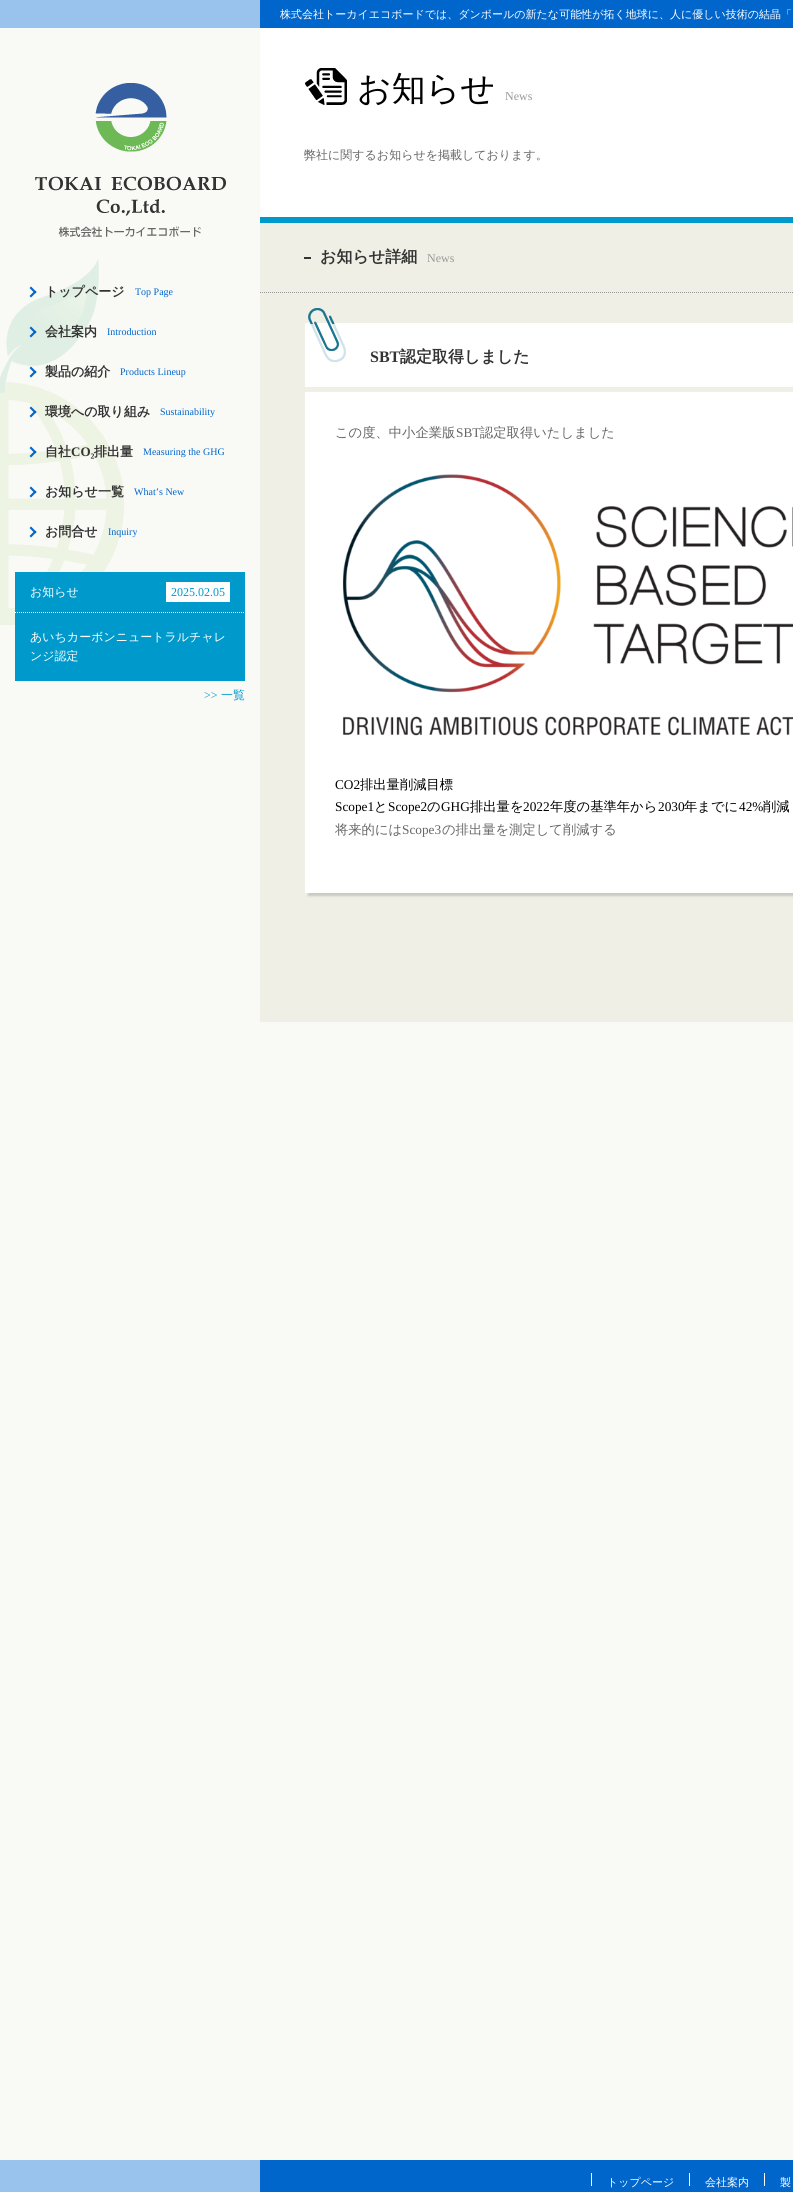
import math
import cairo


def round_path(ctx, x, y, w, h, r):
	ctx.new_sub_path()
	for i, (u, v) in enumerate([(x + w - r, y + h - r), (x + r, y + h - r), (x + r, y + r), (x + w - r, y + r)]):
		ctx.arc(u, v, r, i * math.pi / 2, (i + 1) * math.pi / 2)
	ctx.close_path()

def blur_box(ctx, x, y, w, h, r, blur, alpha):
	ctx.push_group_with_content(cairo.CONTENT_ALPHA)
	ctx.set_operator(cairo.OPERATOR_SOURCE)
	for i in range(15, -16, -2):
		e = blur * i / 6
		if min(w, h) + 2 * e > 0:
			ctx.set_source_rgba(0, 0, 0, alpha * math.erfc((i - 1) / 8.5) / 2)
			round_path(ctx, x - e, y - e, w + 2 * e, h + 2 * e, max(0, min(r + e + blur * .6, min(w, h) / 2 + e)))
			ctx.fill()
	ctx.mask(ctx.pop_group())

def paste(ctx, path, x, y, w, h):
	ctx.save()
	ctx.set_source_surface(cairo.ImageSurface.create_from_png(path), x, y)
	ctx.rectangle(x, y, w, h)
	ctx.fill()
	ctx.restore()

def draw(ctx):
	ctx.set_source_rgb(0.976, 0.976, 0.961)
	ctx.paint()
	ctx.set_source_rgb(0, 0.4, 0.8)
	ctx.rectangle(260, 0, 533, 28)
	ctx.fill()
	ctx.set_source_rgb(0.6, 0.761, 0.922)
	ctx.rectangle(0, 0, 260, 28)
	ctx.fill()
	ctx.select_font_face('WenQuanYi Zen Hei Medium')
	ctx.set_font_size(11)
	ctx.set_source_rgb(1, 1, 1)
	ctx.move_to(280, 18)
	ctx.show_text('株式会社トーカイエコボードでは、ダンボールの新たな可能性が拓く地球に、人に優しい技術の結晶「')
	paste(ctx, 'media/1.png', 0, 259, 124, 366)
	paste(ctx, 'media/2.png', 35, 83, 191, 154)
	ctx.set_source_rgb(0, 0.4, 0.8)
	ctx.new_path()
	ctx.move_to(29.5, 288)
	ctx.line_to(31, 286.5)
	ctx.line_to(36.5, 292)
	ctx.line_to(35, 293.5)
	ctx.close_path()
	ctx.fill()
	ctx.new_path()
	ctx.move_to(29.5, 296)
	ctx.line_to(35, 290.5)
	ctx.line_to(36.5, 292)
	ctx.line_to(31, 297.5)
	ctx.close_path()
	ctx.fill()
	ctx.select_font_face('WenQuanYi Zen Hei', cairo.FONT_SLANT_NORMAL, cairo.FONT_WEIGHT_BOLD)
	ctx.set_font_size(13)
	ctx.set_source_rgb(0.2, 0.2, 0.2)
	ctx.move_to(45, 296)
	ctx.show_text('トップページ')
	ctx.select_font_face('Liberation Serif')
	ctx.set_font_size(10)
	ctx.set_source_rgb(0, 0.4, 0.8)
	ctx.move_to(135, 295)
	ctx.show_text('Top Page')
	ctx.new_path()
	ctx.move_to(29.5, 328)
	ctx.line_to(31, 326.5)
	ctx.line_to(36.5, 332)
	ctx.line_to(35, 333.5)
	ctx.close_path()
	ctx.fill()
	ctx.new_path()
	ctx.move_to(29.5, 336)
	ctx.line_to(35, 330.5)
	ctx.line_to(36.5, 332)
	ctx.line_to(31, 337.5)
	ctx.close_path()
	ctx.fill()
	ctx.select_font_face('WenQuanYi Zen Hei', cairo.FONT_SLANT_NORMAL, cairo.FONT_WEIGHT_BOLD)
	ctx.set_font_size(13)
	ctx.set_source_rgb(0.2, 0.2, 0.2)
	ctx.move_to(45, 336)
	ctx.show_text('会社案内')
	ctx.select_font_face('Liberation Serif')
	ctx.set_font_size(10)
	ctx.set_source_rgb(0, 0.4, 0.8)
	ctx.move_to(107, 335)
	ctx.show_text('Introduction')
	ctx.new_path()
	ctx.move_to(29.5, 368)
	ctx.line_to(31, 366.5)
	ctx.line_to(36.5, 372)
	ctx.line_to(35, 373.5)
	ctx.close_path()
	ctx.fill()
	ctx.new_path()
	ctx.move_to(29.5, 376)
	ctx.line_to(35, 370.5)
	ctx.line_to(36.5, 372)
	ctx.line_to(31, 377.5)
	ctx.close_path()
	ctx.fill()
	ctx.select_font_face('WenQuanYi Zen Hei', cairo.FONT_SLANT_NORMAL, cairo.FONT_WEIGHT_BOLD)
	ctx.set_font_size(13)
	ctx.set_source_rgb(0.2, 0.2, 0.2)
	ctx.move_to(45, 376)
	ctx.show_text('製品の紹介')
	ctx.select_font_face('Liberation Serif')
	ctx.set_font_size(10)
	ctx.set_source_rgb(0, 0.4, 0.8)
	ctx.move_to(120, 375)
	ctx.show_text('Products Lineup')
	ctx.new_path()
	ctx.move_to(29.5, 408)
	ctx.line_to(31, 406.5)
	ctx.line_to(36.5, 412)
	ctx.line_to(35, 413.5)
	ctx.close_path()
	ctx.fill()
	ctx.new_path()
	ctx.move_to(29.5, 416)
	ctx.line_to(35, 410.5)
	ctx.line_to(36.5, 412)
	ctx.line_to(31, 417.5)
	ctx.close_path()
	ctx.fill()
	ctx.select_font_face('WenQuanYi Zen Hei', cairo.FONT_SLANT_NORMAL, cairo.FONT_WEIGHT_BOLD)
	ctx.set_font_size(13)
	ctx.set_source_rgb(0.2, 0.2, 0.2)
	ctx.move_to(45, 416)
	ctx.show_text('環境への取り組み')
	ctx.select_font_face('Liberation Serif')
	ctx.set_font_size(10)
	ctx.set_source_rgb(0, 0.4, 0.8)
	ctx.move_to(160, 415)
	ctx.show_text('Sustainability')
	ctx.new_path()
	ctx.move_to(29.5, 448)
	ctx.line_to(31, 446.5)
	ctx.line_to(36.5, 452)
	ctx.line_to(35, 453.5)
	ctx.close_path()
	ctx.fill()
	ctx.new_path()
	ctx.move_to(29.5, 456)
	ctx.line_to(35, 450.5)
	ctx.line_to(36.5, 452)
	ctx.line_to(31, 457.5)
	ctx.close_path()
	ctx.fill()
	ctx.select_font_face('WenQuanYi Zen Hei', cairo.FONT_SLANT_NORMAL, cairo.FONT_WEIGHT_BOLD)
	ctx.set_font_size(13)
	ctx.set_source_rgb(0.2, 0.2, 0.2)
	ctx.move_to(45, 456)
	ctx.show_text('自社')
	ctx.select_font_face('Liberation Serif', cairo.FONT_SLANT_NORMAL, cairo.FONT_WEIGHT_BOLD)
	ctx.move_to(71, 456)
	ctx.show_text('CO₂')
	ctx.select_font_face('WenQuanYi Zen Hei', cairo.FONT_SLANT_NORMAL, cairo.FONT_WEIGHT_BOLD)
	ctx.move_to(94, 456)
	ctx.show_text('排出量')
	ctx.select_font_face('Liberation Serif')
	ctx.set_font_size(10)
	ctx.set_source_rgb(0, 0.4, 0.8)
	ctx.move_to(143, 455)
	ctx.show_text('Measuring the GHG')
	ctx.new_path()
	ctx.move_to(29.5, 488)
	ctx.line_to(31, 486.5)
	ctx.line_to(36.5, 492)
	ctx.line_to(35, 493.5)
	ctx.close_path()
	ctx.fill()
	ctx.new_path()
	ctx.move_to(29.5, 496)
	ctx.line_to(35, 490.5)
	ctx.line_to(36.5, 492)
	ctx.line_to(31, 497.5)
	ctx.close_path()
	ctx.fill()
	ctx.select_font_face('WenQuanYi Zen Hei', cairo.FONT_SLANT_NORMAL, cairo.FONT_WEIGHT_BOLD)
	ctx.set_font_size(13)
	ctx.set_source_rgb(0.2, 0.2, 0.2)
	ctx.move_to(45, 496)
	ctx.show_text('お知らせ一覧')
	ctx.select_font_face('Liberation Serif')
	ctx.set_font_size(10)
	ctx.set_source_rgb(0, 0.4, 0.8)
	ctx.move_to(134, 495)
	ctx.show_text('What’s New')
	ctx.new_path()
	ctx.move_to(29.5, 528)
	ctx.line_to(31, 526.5)
	ctx.line_to(36.5, 532)
	ctx.line_to(35, 533.5)
	ctx.close_path()
	ctx.fill()
	ctx.new_path()
	ctx.move_to(29.5, 536)
	ctx.line_to(35, 530.5)
	ctx.line_to(36.5, 532)
	ctx.line_to(31, 537.5)
	ctx.close_path()
	ctx.fill()
	ctx.select_font_face('WenQuanYi Zen Hei', cairo.FONT_SLANT_NORMAL, cairo.FONT_WEIGHT_BOLD)
	ctx.set_font_size(13)
	ctx.set_source_rgb(0.2, 0.2, 0.2)
	ctx.move_to(45, 536)
	ctx.show_text('お問合せ')
	ctx.select_font_face('Liberation Serif')
	ctx.set_font_size(10)
	ctx.set_source_rgb(0, 0.4, 0.8)
	ctx.move_to(108, 535)
	ctx.show_text('Inquiry')
	ctx.set_source_rgb(0, 0.6, 0.8)
	ctx.rectangle(15, 572, 230, 109)
	ctx.fill()
	ctx.new_path()
	ctx.move_to(15, 612.5)
	ctx.line_to(245, 612.5)
	ctx.set_source_rgb(1, 1, 1)
	ctx.set_line_width(1)
	ctx.set_dash([1, 1])
	ctx.stroke()
	ctx.select_font_face('WenQuanYi Zen Hei Medium')
	ctx.set_font_size(12)
	ctx.move_to(30, 596)
	ctx.show_text('お知らせ')
	ctx.rectangle(166, 582, 64, 20)
	ctx.fill()
	ctx.select_font_face('Liberation Serif')
	ctx.set_source_rgb(0, 0.6, 0.8)
	ctx.move_to(171, 596)
	ctx.show_text('2025.02.05')
	ctx.select_font_face('WenQuanYi Zen Hei Medium')
	ctx.set_source_rgb(1, 1, 1)
	ctx.move_to(30, 641)
	ctx.show_text('あいちカーボンニュートラルチャレ')
	ctx.move_to(30, 660)
	ctx.show_text('ンジ認定')
	ctx.select_font_face('Liberation Serif')
	ctx.set_source_rgb(0, 0.6, 0.8)
	ctx.move_to(204, 699)
	ctx.show_text('>>')
	ctx.select_font_face('WenQuanYi Zen Hei Medium')
	ctx.move_to(221, 699)
	ctx.show_text('一覧')
	ctx.set_source_rgb(0.937, 0.937, 0.902)
	ctx.rectangle(260, 223, 533, 799)
	ctx.fill()
	ctx.set_source_rgb(1, 1, 1)
	ctx.rectangle(260, 28, 533, 189)
	ctx.fill()
	paste(ctx, 'media/3.png', 305, 68, 42, 37)
	ctx.set_font_size(34)
	ctx.set_source_rgb(0, 0, 0)
	ctx.move_to(357, 100)
	ctx.show_text('お知らせ')
	ctx.select_font_face('Liberation Serif')
	ctx.set_font_size(12)
	ctx.set_source_rgb(0.6, 0.6, 0.6)
	ctx.move_to(505, 100)
	ctx.show_text('News')
	ctx.set_source_rgb(0, 0.6, 0.8)
	ctx.rectangle(260, 217, 533, 6)
	ctx.fill()
	ctx.select_font_face('WenQuanYi Zen Hei Medium')
	ctx.set_source_rgb(0.4, 0.4, 0.4)
	ctx.move_to(304, 159)
	ctx.show_text('弊社に関するお知らせを掲載しております。')
	ctx.new_path()
	ctx.move_to(260, 292.5)
	ctx.line_to(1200, 292.5)
	ctx.set_source_rgb(0.6, 0.6, 0.6)
	ctx.stroke()
	ctx.set_source_rgb(0.2, 0.2, 0.2)
	ctx.rectangle(304, 257, 7, 2)
	ctx.fill()
	ctx.select_font_face('WenQuanYi Zen Hei', cairo.FONT_SLANT_NORMAL, cairo.FONT_WEIGHT_BOLD)
	ctx.set_font_size(16)
	ctx.move_to(320, 262)
	ctx.show_text('お知らせ詳細')
	ctx.select_font_face('Liberation Serif')
	ctx.set_font_size(12)
	ctx.set_source_rgb(0.6, 0.6, 0.6)
	ctx.move_to(427, 262)
	ctx.show_text('News')
	ctx.set_source_rgb(0.792, 0.792, 0.765)
	blur_box(ctx, 308, 326, 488, 570, 0, 1, 1)
	ctx.set_source_rgb(1, 1, 1)
	ctx.rectangle(305, 323, 488, 570)
	ctx.fill()
	paste(ctx, 'media/4.png', 308, 308, 38, 55)
	ctx.set_source_rgb(0.937, 0.937, 0.902)
	ctx.rectangle(305, 387, 488, 5)
	ctx.fill()
	ctx.select_font_face('Liberation Serif', cairo.FONT_SLANT_NORMAL, cairo.FONT_WEIGHT_BOLD)
	ctx.set_font_size(16)
	ctx.set_source_rgb(0.2, 0.2, 0.2)
	ctx.move_to(370, 362)
	ctx.show_text('SBT')
	ctx.select_font_face('WenQuanYi Zen Hei', cairo.FONT_SLANT_NORMAL, cairo.FONT_WEIGHT_BOLD)
	ctx.move_to(400, 362)
	ctx.show_text('認定取得しました')
	ctx.select_font_face('WenQuanYi Zen Hei Medium')
	ctx.set_font_size(13.3)
	ctx.set_source_rgb(0.4, 0.4, 0.4)
	ctx.move_to(335, 437)
	ctx.show_text('この度、中小企業版')
	ctx.select_font_face('Liberation Serif')
	ctx.move_to(456, 437)
	ctx.show_text('SBT')
	ctx.select_font_face('WenQuanYi Zen Hei Medium')
	ctx.move_to(480, 437)
	ctx.show_text('認定取得いたしました')
	paste(ctx, 'media/5.png', 342, 474, 451, 262)
	ctx.select_font_face('Liberation Serif')
	ctx.set_source_rgb(0, 0, 0)
	ctx.move_to(335, 789)
	ctx.show_text('CO2')
	ctx.select_font_face('WenQuanYi Zen Hei Medium')
	ctx.move_to(360, 789)
	ctx.show_text('排出量削減目標')
	ctx.select_font_face('Liberation Serif')
	ctx.move_to(335, 811)
	ctx.show_text('Scope1')
	ctx.select_font_face('WenQuanYi Zen Hei Medium')
	ctx.move_to(374, 811)
	ctx.show_text('と')
	ctx.select_font_face('Liberation Serif')
	ctx.move_to(388, 811)
	ctx.show_text('Scope2')
	ctx.select_font_face('WenQuanYi Zen Hei Medium')
	ctx.move_to(427, 811)
	ctx.show_text('の')
	ctx.select_font_face('Liberation Serif')
	ctx.move_to(441, 811)
	ctx.show_text('GHG')
	ctx.select_font_face('WenQuanYi Zen Hei Medium')
	ctx.move_to(470, 811)
	ctx.show_text('排出量を')
	ctx.select_font_face('Liberation Serif')
	ctx.move_to(523, 811)
	ctx.show_text('2022')
	ctx.select_font_face('WenQuanYi Zen Hei Medium')
	ctx.move_to(550, 811)
	ctx.show_text('年度の基準年から')
	ctx.select_font_face('Liberation Serif')
	ctx.move_to(658, 811)
	ctx.show_text('2030')
	ctx.select_font_face('WenQuanYi Zen Hei Medium')
	ctx.move_to(684, 811)
	ctx.show_text('年までに')
	ctx.select_font_face('Liberation Serif')
	ctx.move_to(739, 811)
	ctx.show_text('42%')
	ctx.select_font_face('WenQuanYi Zen Hei Medium')
	ctx.move_to(763, 811)
	ctx.show_text('削減')
	ctx.set_source_rgb(0.4, 0.4, 0.4)
	ctx.move_to(335, 834)
	ctx.show_text('将来的には')
	ctx.select_font_face('Liberation Serif')
	ctx.move_to(402, 834)
	ctx.show_text('Scope3')
	ctx.select_font_face('WenQuanYi Zen Hei Medium')
	ctx.move_to(442, 834)
	ctx.show_text('の排出量を測定して削減する')
	ctx.set_source_rgb(0, 0.4, 0.8)
	ctx.rectangle(260, 2160, 533, 32)
	ctx.fill()
	ctx.set_source_rgb(0.6, 0.761, 0.922)
	ctx.rectangle(0, 2160, 260, 32)
	ctx.fill()
	ctx.set_source_rgb(1, 1, 1)
	ctx.rectangle(591, 2173, 1, 13)
	ctx.fill()
	ctx.set_font_size(11)
	ctx.move_to(607, 2186)
	ctx.show_text('トップページ')
	ctx.rectangle(689, 2173, 1, 13)
	ctx.fill()
	ctx.move_to(705, 2186)
	ctx.show_text('会社案内')
	ctx.rectangle(764, 2173, 1, 13)
	ctx.fill()
	ctx.move_to(780, 2186)
	ctx.show_text('製')


surface = cairo.ImageSurface(cairo.FORMAT_RGB24, 793, 2192)
ctx = cairo.Context(surface)
options = cairo.FontOptions()
options.set_hint_metrics(cairo.HINT_METRICS_OFF)
options.set_hint_style(cairo.HINT_STYLE_NONE)
ctx.set_font_options(options)
ctx.set_miter_limit(4)
draw(ctx)
surface.write_to_png('image.png')
